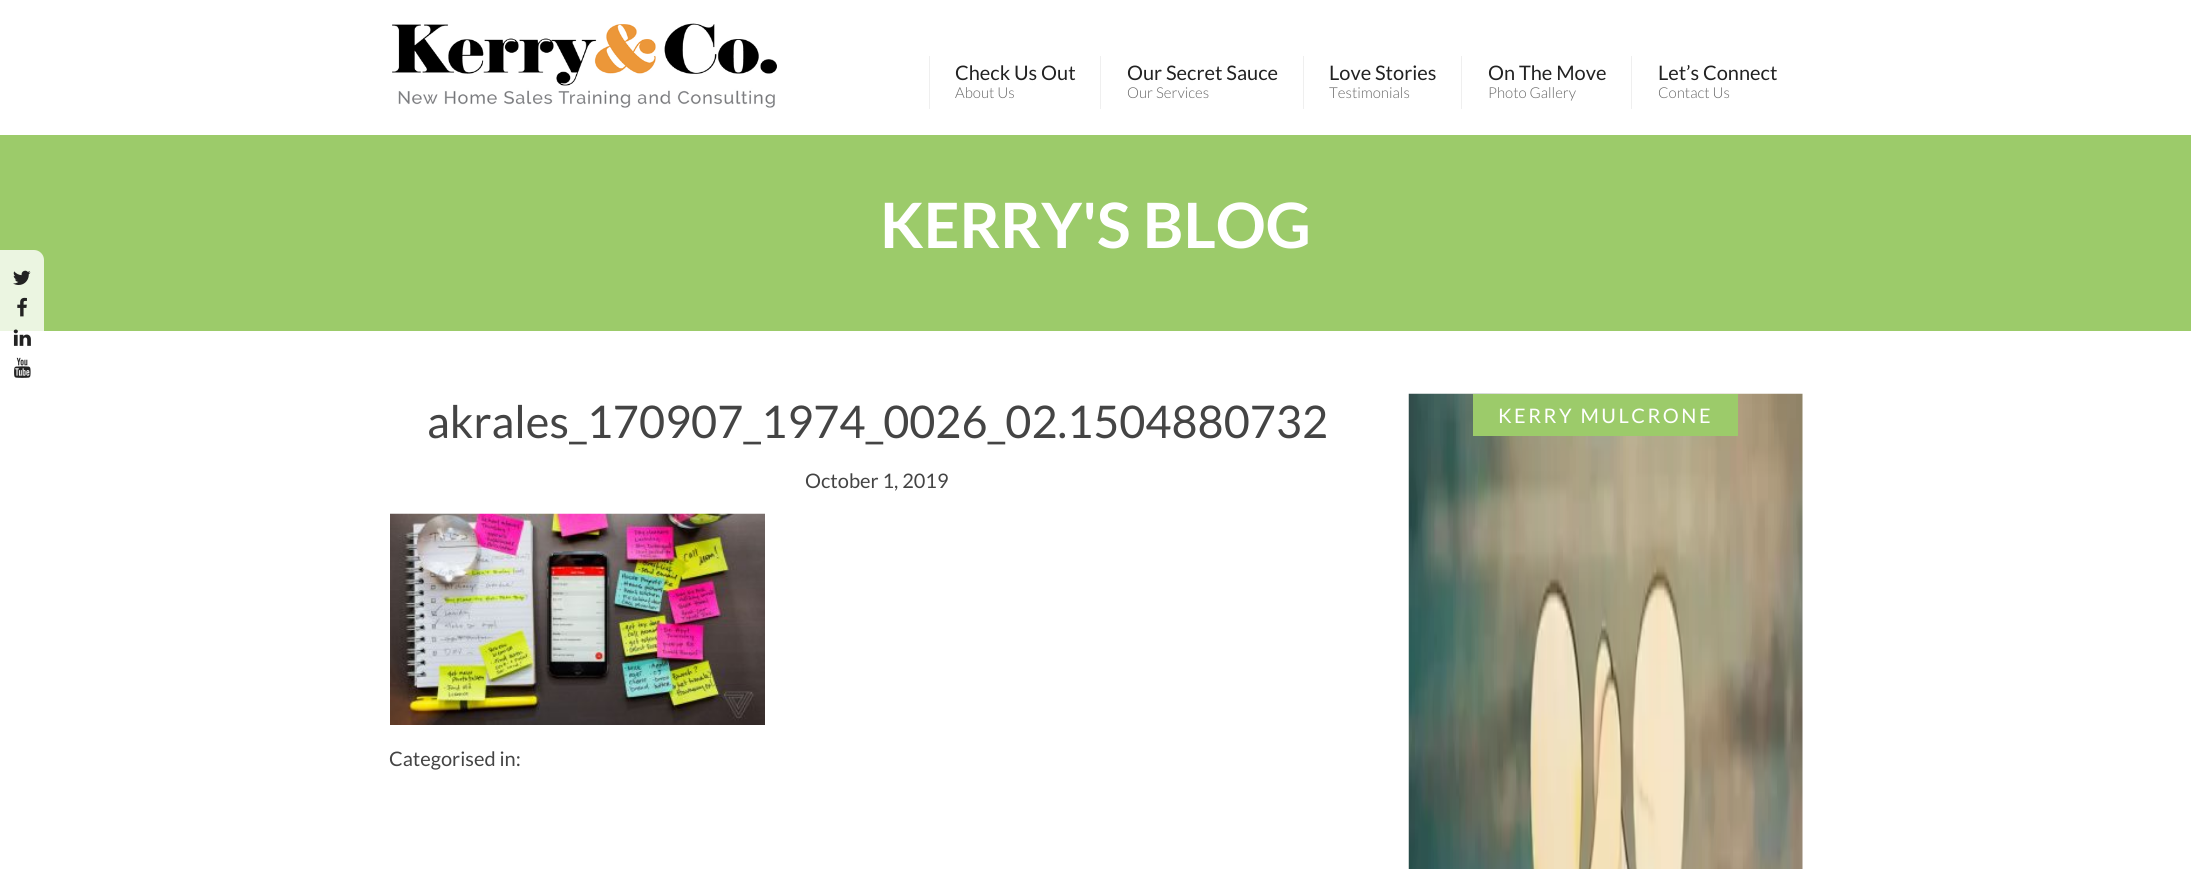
import math
import cairo


def write_spaced(ctx, x, y, s, letter, word):
	ctx.move_to(x, y)
	for ch in s:
		ctx.show_text(ch)
		ctx.rel_move_to(letter + word * (ch == ' '), 0)

def paste(ctx, path, x, y, w, h):
	ctx.save()
	ctx.set_source_surface(cairo.ImageSurface.create_from_png(path), x, y)
	ctx.rectangle(x, y, w, h)
	ctx.fill()
	ctx.restore()

def draw(ctx):
	ctx.set_source_rgb(1, 1, 1)
	ctx.paint()
	paste(ctx, 'media/1.png', 392, 23, 385, 85)
	ctx.set_source_rgb(0.937, 0.937, 0.937)
	ctx.rectangle(929, 56, 1, 53)
	ctx.fill()
	ctx.select_font_face('Lato')
	ctx.set_font_size(20)
	ctx.set_source_rgb(0.133, 0.133, 0.133)
	ctx.move_to(955, 80)
	ctx.show_text('Check Us Out')
	ctx.select_font_face('Lato Light')
	ctx.set_font_size(15)
	ctx.set_source_rgb(0.4, 0.4, 0.4)
	ctx.move_to(955, 98)
	ctx.show_text('About Us')
	ctx.set_source_rgb(0.937, 0.937, 0.937)
	ctx.rectangle(1100, 56, 1, 53)
	ctx.fill()
	ctx.select_font_face('Lato')
	ctx.set_font_size(20)
	ctx.set_source_rgb(0.133, 0.133, 0.133)
	ctx.move_to(1127, 80)
	ctx.show_text('Our Secret Sauce')
	ctx.select_font_face('Lato Light')
	ctx.set_font_size(15)
	ctx.set_source_rgb(0.4, 0.4, 0.4)
	ctx.move_to(1127, 98)
	ctx.show_text('Our Services')
	ctx.set_source_rgb(0.937, 0.937, 0.937)
	ctx.rectangle(1303, 56, 1, 53)
	ctx.fill()
	ctx.select_font_face('Lato')
	ctx.set_font_size(20)
	ctx.set_source_rgb(0.133, 0.133, 0.133)
	ctx.move_to(1329, 80)
	ctx.show_text('Love Stories')
	ctx.select_font_face('Lato Light')
	ctx.set_font_size(15)
	ctx.set_source_rgb(0.4, 0.4, 0.4)
	ctx.move_to(1329, 98)
	ctx.show_text('Testimonials')
	ctx.set_source_rgb(0.937, 0.937, 0.937)
	ctx.rectangle(1461, 56, 1, 53)
	ctx.fill()
	ctx.select_font_face('Lato')
	ctx.set_font_size(20)
	ctx.set_source_rgb(0.133, 0.133, 0.133)
	ctx.move_to(1488, 80)
	ctx.show_text('On The Move')
	ctx.select_font_face('Lato Light')
	ctx.set_font_size(15)
	ctx.set_source_rgb(0.4, 0.4, 0.4)
	ctx.move_to(1488, 98)
	ctx.show_text('Photo Gallery')
	ctx.set_source_rgb(0.937, 0.937, 0.937)
	ctx.rectangle(1631, 56, 1, 53)
	ctx.fill()
	ctx.select_font_face('Lato')
	ctx.set_font_size(20)
	ctx.set_source_rgb(0.133, 0.133, 0.133)
	ctx.move_to(1658, 80)
	ctx.show_text('Let’s Connect')
	ctx.select_font_face('Lato Light')
	ctx.set_font_size(15)
	ctx.set_source_rgb(0.4, 0.4, 0.4)
	ctx.move_to(1658, 98)
	ctx.show_text('Contact Us')
	ctx.set_source_rgb(0.612, 0.796, 0.416)
	ctx.rectangle(0, 135, 2191, 196)
	ctx.fill()
	ctx.select_font_face('Lato', cairo.FONT_SLANT_NORMAL, cairo.FONT_WEIGHT_BOLD)
	ctx.set_font_size(62.5)
	ctx.set_source_rgb(1, 1, 1)
	ctx.move_to(880, 248)
	ctx.show_text('KERRY\'S BLOG')
	ctx.set_source_rgba(1, 1, 1, 0.8)
	ctx.new_path()
	ctx.move_to(0, 250)
	ctx.line_to(34, 250)
	ctx.curve_to(39.5, 250, 44, 254.5, 44, 260)
	ctx.line_to(44, 385)
	ctx.curve_to(44, 390.5, 39.5, 395, 34, 395)
	ctx.line_to(0, 395)
	ctx.close_path()
	ctx.fill()
	paste(ctx, 'media/2.png', 13, 270, 18, 15)
	paste(ctx, 'media/3.png', 17, 297, 10, 20)
	paste(ctx, 'media/4.png', 13, 329, 18, 17)
	paste(ctx, 'media/5.png', 14, 357, 17, 21)
	ctx.select_font_face('Lato')
	ctx.set_font_size(45)
	ctx.set_source_rgb(0.267, 0.267, 0.267)
	ctx.move_to(427, 438)
	ctx.show_text('akrales_170907_1974_0026_02.1504880732')
	ctx.set_font_size(20)
	ctx.move_to(805, 488)
	ctx.show_text('October 1, 2019')
	paste(ctx, 'media/6.png', 390, 513, 375, 212)
	ctx.move_to(389, 766)
	ctx.show_text('Categorised in:')
	paste(ctx, 'media/7.png', 1408, 393, 395, 476)
	ctx.set_source_rgb(0.612, 0.796, 0.416)
	ctx.rectangle(1473, 394, 265, 42)
	ctx.fill()
	ctx.set_source_rgb(1, 1, 1)
	write_spaced(ctx, 1498, 423, 'KERRY MULCRONE', 2.5, 0)


surface = cairo.ImageSurface(cairo.FORMAT_RGB24, 2191, 869)
ctx = cairo.Context(surface)
options = cairo.FontOptions()
options.set_hint_metrics(cairo.HINT_METRICS_OFF)
options.set_hint_style(cairo.HINT_STYLE_NONE)
ctx.set_font_options(options)
ctx.set_miter_limit(4)
draw(ctx)
surface.write_to_png('image.png')
